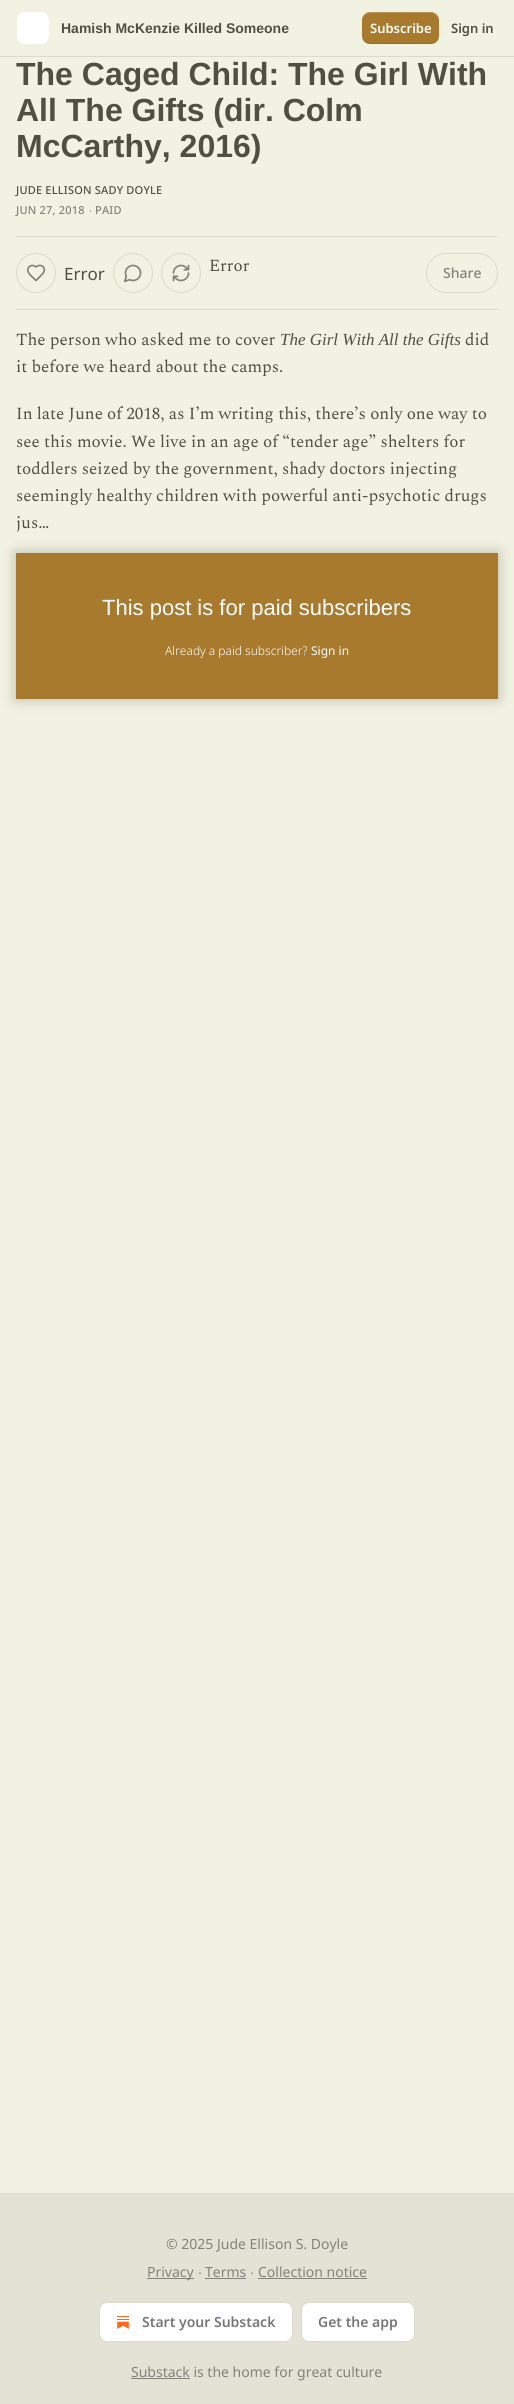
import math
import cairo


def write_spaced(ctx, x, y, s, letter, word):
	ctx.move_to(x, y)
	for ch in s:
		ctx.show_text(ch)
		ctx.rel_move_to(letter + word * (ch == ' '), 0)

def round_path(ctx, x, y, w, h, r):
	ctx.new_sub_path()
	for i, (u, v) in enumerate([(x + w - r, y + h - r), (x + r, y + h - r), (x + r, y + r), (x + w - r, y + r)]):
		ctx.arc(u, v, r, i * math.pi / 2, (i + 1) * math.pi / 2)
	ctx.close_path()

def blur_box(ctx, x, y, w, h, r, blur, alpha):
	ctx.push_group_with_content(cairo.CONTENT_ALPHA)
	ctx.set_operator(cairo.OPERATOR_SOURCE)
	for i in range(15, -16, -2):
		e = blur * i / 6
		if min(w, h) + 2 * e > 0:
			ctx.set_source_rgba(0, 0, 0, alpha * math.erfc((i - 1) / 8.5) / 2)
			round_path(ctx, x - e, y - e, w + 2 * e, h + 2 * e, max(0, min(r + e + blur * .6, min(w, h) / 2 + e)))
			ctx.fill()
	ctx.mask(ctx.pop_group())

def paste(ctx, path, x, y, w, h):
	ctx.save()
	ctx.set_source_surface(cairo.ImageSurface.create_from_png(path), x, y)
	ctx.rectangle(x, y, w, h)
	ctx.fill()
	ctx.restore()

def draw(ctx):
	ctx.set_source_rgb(0.949, 0.949, 0.89)
	ctx.paint()
	ctx.set_source_rgb(0.855, 0.855, 0.8)
	ctx.rectangle(0, 56, 514, 1)
	ctx.fill()
	ctx.set_source_rgb(1, 1, 1)
	round_path(ctx, 17, 12, 32, 32, 8)
	ctx.fill()
	ctx.select_font_face('Liberation Sans', cairo.FONT_SLANT_NORMAL, cairo.FONT_WEIGHT_BOLD)
	ctx.set_font_size(14)
	ctx.set_source_rgb(0.314, 0.314, 0.255)
	ctx.move_to(61, 33)
	ctx.show_text('Hamish McKenzie Killed Someone')
	ctx.set_source_rgb(0.659, 0.478, 0.176)
	round_path(ctx, 362, 12, 77, 32, 8)
	ctx.fill()
	ctx.set_source_rgba(0, 0, 0, 0.1)
	ctx.new_path()
	ctx.move_to(362, 35)
	ctx.curve_to(362, 46, 372, 44, 380, 44)
	ctx.line_to(421, 44)
	ctx.curve_to(429, 44, 439, 46, 439, 35)
	ctx.curve_to(439, 39, 435, 43, 431, 43)
	ctx.line_to(370, 43)
	ctx.curve_to(366, 43, 362, 39, 362, 35)
	ctx.close_path()
	ctx.fill()
	ctx.set_source_rgba(1, 1, 1, 0.2)
	ctx.new_path()
	ctx.move_to(370, 13)
	ctx.line_to(431, 13)
	ctx.curve_to(435, 13, 439, 17, 439, 21)
	ctx.curve_to(439, 10, 429, 12, 421, 12)
	ctx.line_to(380, 12)
	ctx.curve_to(372, 12, 362, 10, 362, 21)
	ctx.curve_to(362, 17, 366, 13, 370, 13)
	ctx.close_path()
	ctx.fill()
	ctx.select_font_face('Noto Sans SemiBold')
	ctx.set_font_size(13)
	ctx.set_source_rgb(1, 1, 1)
	ctx.move_to(370, 33)
	ctx.show_text('Subscribe')
	ctx.set_source_rgb(0.314, 0.314, 0.255)
	ctx.move_to(451, 33)
	ctx.show_text('Sign in')
	ctx.select_font_face('Liberation Sans', cairo.FONT_SLANT_NORMAL, cairo.FONT_WEIGHT_BOLD)
	ctx.set_font_size(32)
	for x, y, s in [
		(16, 85, 'The Caged Child: The Girl With'),
		(16, 121, 'All The Gifts (dir. Colm'),
		(16, 157, 'McCarthy, 2016)'),
	]:
		ctx.move_to(x, y)
		ctx.show_text(s)
	ctx.select_font_face('Noto Sans Medium')
	ctx.set_font_size(11)
	write_spaced(ctx, 16, 194, 'JUDE ELLISON SADY DOYLE', 0.2, 0)
	ctx.set_source_rgb(0.506, 0.51, 0.486)
	write_spaced(ctx, 16, 214, 'JUN 27, 2018', 0.2, 0)
	ctx.select_font_face('Liberation Sans')
	write_spaced(ctx, 89, 214, '∙', 0.2, 0)
	ctx.select_font_face('Noto Sans Medium')
	write_spaced(ctx, 95, 214, 'PAID', 0.2, 0)
	ctx.set_source_rgb(0.855, 0.855, 0.8)
	ctx.rectangle(16, 236, 482, 1)
	ctx.fill()
	ctx.rectangle(16, 309, 482, 1)
	ctx.fill()
	ctx.arc(133, 273, 19.5, 0, 2 * math.pi)
	ctx.set_line_width(1)
	ctx.stroke()
	paste(ctx, 'media/1.png', 123, 264, 19, 19)
	ctx.arc(181, 273, 19.5, 0, 2 * math.pi)
	ctx.stroke()
	paste(ctx, 'media/2.png', 172, 264, 18, 18)
	ctx.select_font_face('Spectral')
	ctx.set_font_size(17)
	ctx.set_source_rgb(0.314, 0.314, 0.255)
	ctx.move_to(209, 271)
	ctx.show_text('Error')
	ctx.new_path()
	ctx.arc(36, 273, 19.5, 0, 2 * math.pi)
	ctx.set_source_rgb(0.855, 0.855, 0.8)
	ctx.stroke()
	ctx.new_path()
	ctx.move_to(42, 274.5)
	ctx.curve_to(48, 268.5, 41, 262.5, 36, 267)
	ctx.curve_to(32.5, 263.5, 26.5, 266.5, 28, 271.5)
	ctx.curve_to(29, 274.5, 34, 278.5, 36, 280.5)
	ctx.close_path()
	ctx.set_source_rgb(0.506, 0.51, 0.486)
	ctx.set_line_width(1.7)
	ctx.set_line_cap(cairo.LINE_CAP_ROUND)
	ctx.set_line_join(cairo.LINE_JOIN_ROUND)
	ctx.stroke()
	ctx.select_font_face('Noto Sans')
	ctx.set_source_rgb(0.314, 0.314, 0.255)
	ctx.move_to(64, 280)
	ctx.show_text('Error')
	round_path(ctx, 426.5, 253.5, 71, 39, 19.5)
	ctx.set_source_rgb(0.855, 0.855, 0.8)
	ctx.set_line_width(1)
	ctx.set_line_cap(cairo.LINE_CAP_BUTT)
	ctx.set_line_join(cairo.LINE_JOIN_MITER)
	ctx.stroke()
	ctx.select_font_face('Noto Sans Medium')
	ctx.set_font_size(14)
	ctx.set_source_rgb(0.506, 0.51, 0.486)
	ctx.move_to(443, 278)
	ctx.show_text('Share')
	ctx.select_font_face('Spectral')
	ctx.set_font_size(17)
	ctx.set_source_rgb(0.314, 0.314, 0.255)
	ctx.move_to(16, 345)
	ctx.show_text('The person who asked me to cover')
	ctx.select_font_face('Liberation Serif', cairo.FONT_SLANT_ITALIC)
	ctx.move_to(280, 345)
	ctx.show_text('The Girl With All the Gifts')
	ctx.select_font_face('Spectral')
	for x, y, s in [
		(465, 345, 'did'),
		(16, 372, 'it before we heard about the camps.'),
		(16, 419, 'In late June of 2018, as I’m writing this, there’s only one way to'),
		(16, 447, 'see this movie. We live in an age of “tender age” shelters for'),
		(16, 474, 'toddlers seized by the government, shady doctors injecting'),
		(16, 501, 'seemingly healthy children with powerful anti-psychotic drugs'),
		(16, 528, 'jus…'),
	]:
		ctx.move_to(x, y)
		ctx.show_text(s)
	ctx.set_source_rgb(0.659, 0.478, 0.176)
	ctx.rectangle(16, 553, 482, 146)
	ctx.fill()
	ctx.save()
	ctx.set_fill_rule(cairo.FILL_RULE_EVEN_ODD)
	ctx.new_path()
	ctx.move_to(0, 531)
	ctx.line_to(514, 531)
	ctx.line_to(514, 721)
	ctx.line_to(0, 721)
	ctx.close_path()
	ctx.move_to(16, 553)
	ctx.line_to(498, 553)
	ctx.line_to(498, 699)
	ctx.line_to(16, 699)
	ctx.close_path()
	ctx.clip()
	ctx.set_source_rgb(0, 0, 0)
	blur_box(ctx, 16, 553, 482, 146, 0, 7, 0.25)
	ctx.restore()
	ctx.select_font_face('Liberation Sans')
	ctx.set_font_size(22)
	ctx.set_source_rgb(1, 1, 1)
	ctx.move_to(102, 615)
	ctx.show_text('This post is for paid subscribers')
	ctx.select_font_face('Noto Sans Light')
	ctx.set_font_size(12)
	ctx.move_to(165, 655)
	ctx.show_text('Already a paid subscriber?')
	ctx.select_font_face('Noto Sans')
	ctx.move_to(311, 655)
	ctx.show_text('Sign in')
	ctx.set_source_rgb(0.89, 0.89, 0.835)
	ctx.rectangle(0, 2194, 514, 210)
	ctx.fill()
	ctx.set_source_rgb(0.855, 0.855, 0.8)
	ctx.rectangle(0, 2193, 514, 1)
	ctx.fill()
	ctx.set_font_size(14)
	ctx.set_source_rgb(0.506, 0.51, 0.486)
	ctx.move_to(166, 2249)
	ctx.show_text('© 2025 Jude Ellison S. Doyle')
	ctx.rectangle(147, 2278, 47, 1)
	ctx.fill()
	ctx.move_to(147, 2277)
	ctx.show_text('Privacy')
	ctx.select_font_face('Liberation Sans')
	ctx.move_to(198, 2277)
	ctx.show_text('∙')
	ctx.select_font_face('Noto Sans')
	ctx.move_to(205, 2277)
	ctx.show_text('Terms')
	ctx.rectangle(205, 2278, 41, 1)
	ctx.fill()
	ctx.select_font_face('Liberation Sans')
	ctx.move_to(250, 2277)
	ctx.show_text('∙')
	ctx.select_font_face('Noto Sans')
	ctx.move_to(258, 2277)
	ctx.show_text('Collection notice')
	ctx.rectangle(258, 2278, 109, 1)
	ctx.fill()
	ctx.set_source_rgb(1, 1, 1)
	round_path(ctx, 99.5, 2302.5, 193, 39, 7.5)
	ctx.fill_preserve()
	ctx.set_source_rgb(0.855, 0.855, 0.8)
	ctx.stroke()
	paste(ctx, 'media/3.png', 117, 2316, 12, 13)
	ctx.select_font_face('Noto Sans SemiBold')
	ctx.set_source_rgb(0.467, 0.467, 0.467)
	ctx.move_to(142, 2327)
	ctx.show_text('Start your Substack')
	ctx.set_source_rgb(1, 1, 1)
	round_path(ctx, 301.5, 2302.5, 113, 39, 7.5)
	ctx.fill_preserve()
	ctx.set_source_rgb(0.855, 0.855, 0.8)
	ctx.stroke()
	ctx.set_source_rgb(0.467, 0.467, 0.467)
	ctx.move_to(318, 2327)
	ctx.show_text('Get the app')
	ctx.set_source_rgb(0.506, 0.51, 0.486)
	ctx.rectangle(131, 2378, 59, 1)
	ctx.fill()
	ctx.select_font_face('Noto Sans')
	ctx.move_to(131, 2377)
	ctx.show_text('Substack is the home for great culture')


surface = cairo.ImageSurface(cairo.FORMAT_RGB24, 514, 2404)
ctx = cairo.Context(surface)
options = cairo.FontOptions()
options.set_hint_metrics(cairo.HINT_METRICS_OFF)
options.set_hint_style(cairo.HINT_STYLE_NONE)
ctx.set_font_options(options)
ctx.set_miter_limit(4)
draw(ctx)
surface.write_to_png('image.png')
